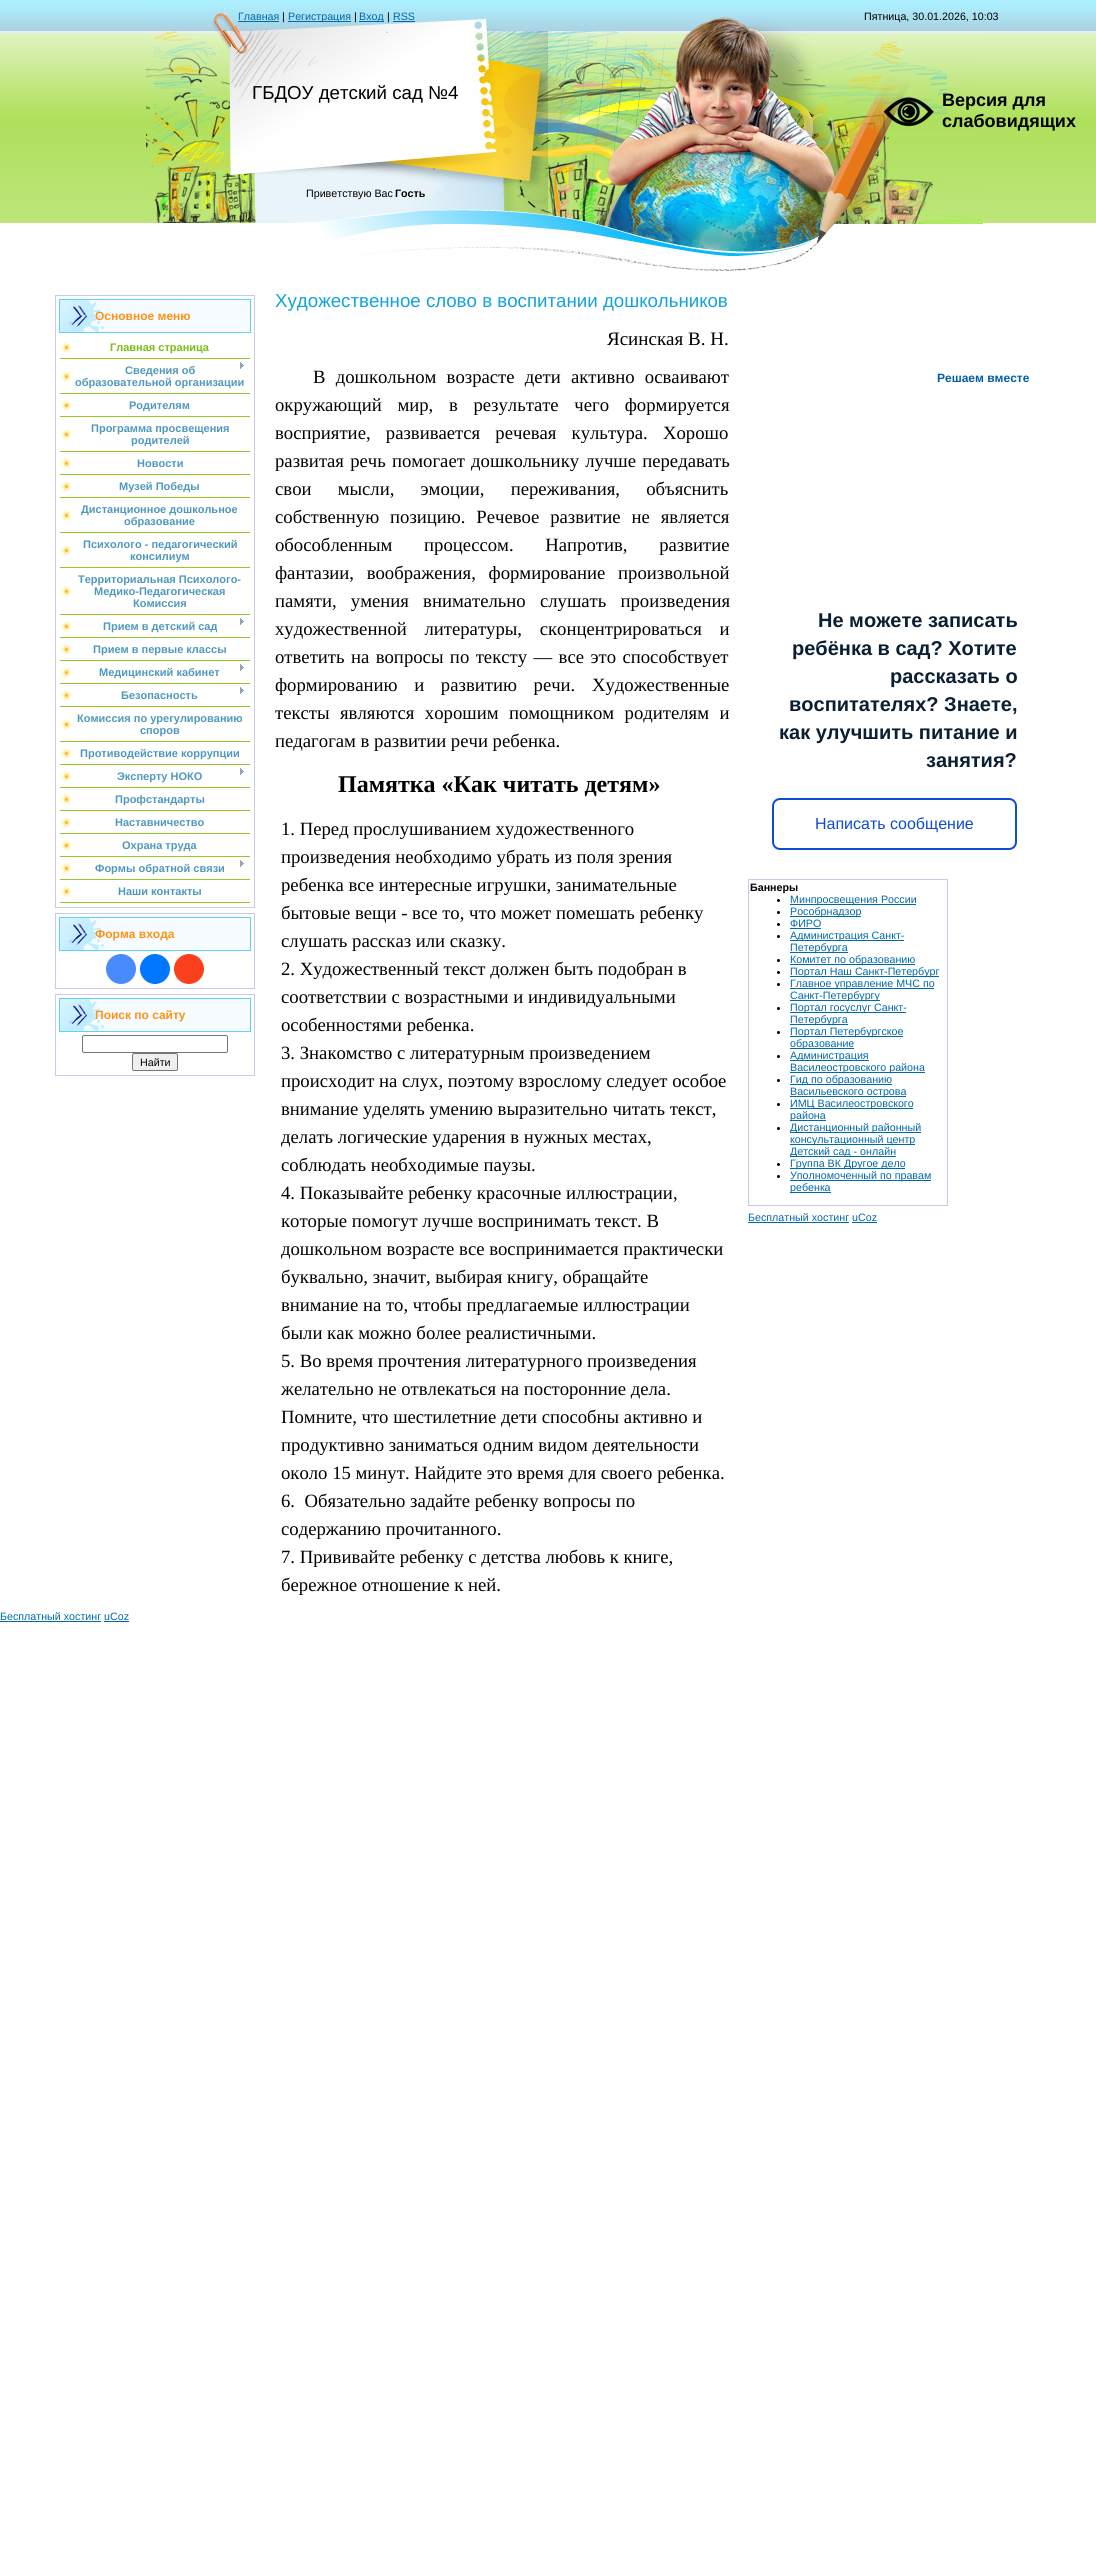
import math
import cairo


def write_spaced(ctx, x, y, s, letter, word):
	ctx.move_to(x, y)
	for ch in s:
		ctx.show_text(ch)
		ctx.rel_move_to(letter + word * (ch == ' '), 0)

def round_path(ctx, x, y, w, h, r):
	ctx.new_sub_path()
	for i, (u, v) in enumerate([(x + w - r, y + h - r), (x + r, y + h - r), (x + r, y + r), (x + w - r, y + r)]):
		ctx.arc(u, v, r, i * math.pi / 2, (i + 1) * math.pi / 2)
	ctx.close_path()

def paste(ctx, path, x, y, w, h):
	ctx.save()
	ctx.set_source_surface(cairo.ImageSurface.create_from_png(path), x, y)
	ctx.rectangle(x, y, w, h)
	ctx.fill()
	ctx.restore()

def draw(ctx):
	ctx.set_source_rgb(1, 1, 1)
	ctx.paint()
	paste(ctx, 'media/1.png', 0, 0, 1096, 223)
	paste(ctx, 'media/2.png', 145, 8, 838, 263)
	ctx.select_font_face('Liberation Sans')
	ctx.set_font_size(10.7)
	ctx.set_source_rgb(0, 0.412, 0.663)
	ctx.move_to(238, 20)
	ctx.show_text('Главная')
	ctx.rectangle(238, 21, 41, 1)
	ctx.fill()
	ctx.set_source_rgb(0, 0, 0)
	ctx.move_to(282, 20)
	ctx.show_text('|')
	ctx.set_source_rgb(0, 0.412, 0.663)
	ctx.rectangle(288, 21, 63, 1)
	ctx.fill()
	ctx.move_to(288, 20)
	ctx.show_text('Регистрация')
	ctx.set_source_rgb(0, 0, 0)
	ctx.move_to(354, 20)
	ctx.show_text('|')
	ctx.set_source_rgb(0, 0.412, 0.663)
	ctx.rectangle(359, 21, 25, 1)
	ctx.fill()
	ctx.move_to(359, 20)
	ctx.show_text('Вход')
	ctx.set_source_rgb(0, 0, 0)
	ctx.move_to(387, 20)
	ctx.show_text('|')
	ctx.set_source_rgb(0, 0.412, 0.663)
	ctx.move_to(393, 20)
	ctx.show_text('RSS')
	ctx.rectangle(393, 21, 22, 1)
	ctx.fill()
	ctx.set_source_rgb(0, 0, 0)
	ctx.move_to(864, 20)
	ctx.show_text('Пятница, 30.01.2026, 10:03')
	ctx.set_font_size(18.7)
	ctx.move_to(252, 99)
	ctx.show_text('ГБДОУ детский сад №4')
	ctx.set_font_size(10.7)
	ctx.move_to(306, 197)
	ctx.show_text('Приветствую Вас')
	ctx.select_font_face('Liberation Sans', cairo.FONT_SLANT_NORMAL, cairo.FONT_WEIGHT_BOLD)
	ctx.move_to(395, 197)
	ctx.show_text('Гость')
	ctx.rectangle(55.5, 295.5, 199, 612)
	ctx.set_source_rgb(0.792, 0.792, 0.902)
	ctx.set_line_width(1)
	ctx.stroke()
	ctx.set_source_rgb(0.961, 0.988, 1)
	ctx.rectangle(104, 300, 146, 32)
	ctx.fill()
	paste(ctx, 'media/3.png', 60, 300, 44, 32)
	ctx.rectangle(59.5, 299.5, 191, 33)
	ctx.set_source_rgb(0.357, 0.82, 0.988)
	ctx.stroke()
	ctx.set_font_size(12)
	ctx.set_source_rgb(1, 0.569, 0.082)
	ctx.move_to(95, 320)
	ctx.show_text('Основное меню')
	paste(ctx, 'media/4.png', 60, 341, 11, 12)
	ctx.set_source_rgb(0.592, 0.784, 0.129)
	ctx.rectangle(60, 358, 190, 1)
	ctx.fill()
	ctx.set_font_size(11)
	ctx.set_source_rgb(0.475, 0.741, 0.067)
	ctx.move_to(110, 351)
	ctx.show_text('Главная страница')
	paste(ctx, 'media/4.png', 60, 370, 11, 12)
	ctx.set_source_rgb(0.592, 0.784, 0.129)
	ctx.rectangle(60, 393, 190, 1)
	ctx.fill()
	ctx.set_source_rgb(0.31, 0.596, 0.737)
	ctx.move_to(125, 374)
	ctx.show_text('Сведения об')
	paste(ctx, 'media/5.png', 240, 362, 4, 7)
	ctx.move_to(75, 386)
	ctx.show_text('образовательной организации')
	paste(ctx, 'media/4.png', 60, 399, 11, 12)
	ctx.set_source_rgb(0.592, 0.784, 0.129)
	ctx.rectangle(60, 416, 190, 1)
	ctx.fill()
	ctx.set_source_rgb(0.31, 0.596, 0.737)
	ctx.move_to(129, 409)
	ctx.show_text('Родителям')
	paste(ctx, 'media/4.png', 60, 428, 11, 12)
	ctx.set_source_rgb(0.592, 0.784, 0.129)
	ctx.rectangle(60, 451, 190, 1)
	ctx.fill()
	ctx.set_source_rgb(0.31, 0.596, 0.737)
	ctx.move_to(91, 432)
	ctx.show_text('Программа просвещения')
	ctx.move_to(131, 444)
	ctx.show_text('родителей')
	paste(ctx, 'media/4.png', 60, 457, 11, 12)
	ctx.set_source_rgb(0.592, 0.784, 0.129)
	ctx.rectangle(60, 474, 190, 1)
	ctx.fill()
	ctx.set_source_rgb(0.31, 0.596, 0.737)
	ctx.move_to(137, 467)
	ctx.show_text('Новости')
	paste(ctx, 'media/4.png', 60, 480, 11, 12)
	ctx.set_source_rgb(0.592, 0.784, 0.129)
	ctx.rectangle(60, 497, 190, 1)
	ctx.fill()
	ctx.set_source_rgb(0.31, 0.596, 0.737)
	ctx.move_to(119, 490)
	ctx.show_text('Музей Победы')
	paste(ctx, 'media/4.png', 60, 509, 11, 12)
	ctx.set_source_rgb(0.592, 0.784, 0.129)
	ctx.rectangle(60, 532, 190, 1)
	ctx.fill()
	ctx.set_source_rgb(0.31, 0.596, 0.737)
	ctx.move_to(81, 513)
	ctx.show_text('Дистанционное дошкольное')
	ctx.move_to(124, 525)
	ctx.show_text('образование')
	paste(ctx, 'media/4.png', 60, 544, 11, 12)
	ctx.set_source_rgb(0.592, 0.784, 0.129)
	ctx.rectangle(60, 567, 190, 1)
	ctx.fill()
	ctx.set_source_rgb(0.31, 0.596, 0.737)
	ctx.move_to(83, 548)
	ctx.show_text('Психолого - педагогический')
	ctx.move_to(130, 560)
	ctx.show_text('консилиум')
	paste(ctx, 'media/4.png', 60, 585, 11, 12)
	ctx.set_source_rgb(0.592, 0.784, 0.129)
	ctx.rectangle(60, 614, 190, 1)
	ctx.fill()
	ctx.set_source_rgb(0.31, 0.596, 0.737)
	for x, y, s in [
		(78, 583, 'Территориальная Психолого-'),
		(94, 595, 'Медико-Педагогическая'),
		(133, 607, 'Комиссия'),
	]:
		ctx.move_to(x, y)
		ctx.show_text(s)
	paste(ctx, 'media/4.png', 60, 620, 11, 12)
	ctx.set_source_rgb(0.592, 0.784, 0.129)
	ctx.rectangle(60, 637, 190, 1)
	ctx.fill()
	ctx.set_source_rgb(0.31, 0.596, 0.737)
	ctx.move_to(103, 630)
	ctx.show_text('Прием в детский сад')
	paste(ctx, 'media/5.png', 240, 618, 4, 7)
	paste(ctx, 'media/4.png', 60, 643, 11, 12)
	ctx.set_source_rgb(0.592, 0.784, 0.129)
	ctx.rectangle(60, 660, 190, 1)
	ctx.fill()
	ctx.set_source_rgb(0.31, 0.596, 0.737)
	ctx.move_to(93, 653)
	ctx.show_text('Прием в первые классы')
	paste(ctx, 'media/4.png', 60, 666, 11, 12)
	ctx.set_source_rgb(0.592, 0.784, 0.129)
	ctx.rectangle(60, 683, 190, 1)
	ctx.fill()
	ctx.set_source_rgb(0.31, 0.596, 0.737)
	ctx.move_to(99, 676)
	ctx.show_text('Медицинский кабинет')
	paste(ctx, 'media/5.png', 240, 664, 4, 7)
	paste(ctx, 'media/4.png', 60, 689, 11, 12)
	ctx.set_source_rgb(0.592, 0.784, 0.129)
	ctx.rectangle(60, 706, 190, 1)
	ctx.fill()
	ctx.set_source_rgb(0.31, 0.596, 0.737)
	ctx.move_to(121, 699)
	ctx.show_text('Безопасность')
	paste(ctx, 'media/5.png', 240, 687, 4, 7)
	paste(ctx, 'media/4.png', 60, 718, 11, 12)
	ctx.set_source_rgb(0.592, 0.784, 0.129)
	ctx.rectangle(60, 741, 190, 1)
	ctx.fill()
	ctx.set_source_rgb(0.31, 0.596, 0.737)
	ctx.move_to(77, 722)
	ctx.show_text('Комиссия по урегулированию')
	ctx.move_to(140, 734)
	ctx.show_text('споров')
	paste(ctx, 'media/4.png', 60, 747, 11, 12)
	ctx.set_source_rgb(0.592, 0.784, 0.129)
	ctx.rectangle(60, 764, 190, 1)
	ctx.fill()
	ctx.set_source_rgb(0.31, 0.596, 0.737)
	ctx.move_to(80, 757)
	ctx.show_text('Противодействие коррупции')
	paste(ctx, 'media/4.png', 60, 770, 11, 12)
	ctx.set_source_rgb(0.592, 0.784, 0.129)
	ctx.rectangle(60, 787, 190, 1)
	ctx.fill()
	ctx.set_source_rgb(0.31, 0.596, 0.737)
	ctx.move_to(117, 780)
	ctx.show_text('Эксперту НОКО')
	paste(ctx, 'media/5.png', 240, 768, 4, 7)
	paste(ctx, 'media/4.png', 60, 793, 11, 12)
	ctx.set_source_rgb(0.592, 0.784, 0.129)
	ctx.rectangle(60, 810, 190, 1)
	ctx.fill()
	ctx.set_source_rgb(0.31, 0.596, 0.737)
	ctx.move_to(115, 803)
	ctx.show_text('Профстандарты')
	paste(ctx, 'media/4.png', 60, 816, 11, 12)
	ctx.set_source_rgb(0.592, 0.784, 0.129)
	ctx.rectangle(60, 833, 190, 1)
	ctx.fill()
	ctx.set_source_rgb(0.31, 0.596, 0.737)
	ctx.move_to(115, 826)
	ctx.show_text('Наставничество')
	paste(ctx, 'media/4.png', 60, 839, 11, 12)
	ctx.set_source_rgb(0.592, 0.784, 0.129)
	ctx.rectangle(60, 856, 190, 1)
	ctx.fill()
	ctx.set_source_rgb(0.31, 0.596, 0.737)
	ctx.move_to(122, 849)
	ctx.show_text('Охрана труда')
	paste(ctx, 'media/4.png', 60, 862, 11, 12)
	ctx.set_source_rgb(0.592, 0.784, 0.129)
	ctx.rectangle(60, 879, 190, 1)
	ctx.fill()
	ctx.set_source_rgb(0.31, 0.596, 0.737)
	ctx.move_to(95, 872)
	ctx.show_text('Формы обратной связи')
	paste(ctx, 'media/5.png', 240, 860, 4, 7)
	paste(ctx, 'media/4.png', 60, 885, 11, 12)
	ctx.set_source_rgb(0.592, 0.784, 0.129)
	ctx.rectangle(60, 902, 190, 1)
	ctx.fill()
	ctx.set_source_rgb(0.31, 0.596, 0.737)
	ctx.move_to(118, 895)
	ctx.show_text('Наши контакты')
	ctx.rectangle(55.5, 913.5, 199, 75)
	ctx.set_source_rgb(0.792, 0.792, 0.902)
	ctx.stroke()
	ctx.set_source_rgb(0.961, 0.988, 1)
	ctx.rectangle(104, 918, 146, 32)
	ctx.fill()
	paste(ctx, 'media/3.png', 60, 918, 44, 32)
	ctx.rectangle(59.5, 917.5, 191, 33)
	ctx.set_source_rgb(0.357, 0.82, 0.988)
	ctx.stroke()
	ctx.set_font_size(12)
	ctx.set_source_rgb(1, 0.569, 0.082)
	ctx.move_to(95, 938)
	ctx.show_text('Форма входа')
	ctx.set_source_rgb(0.286, 0.545, 0.98)
	ctx.new_path()
	ctx.arc(121, 969, 15, 0, 2 * math.pi)
	ctx.fill()
	ctx.set_source_rgb(0, 0.467, 1)
	ctx.arc(155, 969, 15, 0, 2 * math.pi)
	ctx.fill()
	ctx.set_source_rgb(0.988, 0.247, 0.114)
	ctx.arc(189, 969, 15, 0, 2 * math.pi)
	ctx.fill()
	ctx.rectangle(55.5, 994.5, 199, 81)
	ctx.set_source_rgb(0.792, 0.792, 0.902)
	ctx.stroke()
	ctx.set_source_rgb(0.961, 0.988, 1)
	ctx.rectangle(104, 999, 146, 32)
	ctx.fill()
	paste(ctx, 'media/3.png', 60, 999, 44, 32)
	ctx.rectangle(59.5, 998.5, 191, 33)
	ctx.set_source_rgb(0.357, 0.82, 0.988)
	ctx.stroke()
	ctx.set_source_rgb(1, 0.569, 0.082)
	ctx.move_to(95, 1019)
	ctx.show_text('Поиск по сайту')
	round_path(ctx, 82.5, 1035.5, 145, 17, 1.5)
	ctx.set_source_rgb(0.463, 0.463, 0.463)
	ctx.stroke()
	ctx.set_source_rgb(0.937, 0.937, 0.937)
	round_path(ctx, 132.5, 1053.5, 45, 17, 1.5)
	ctx.fill_preserve()
	ctx.set_source_rgb(0.463, 0.463, 0.463)
	ctx.stroke()
	ctx.select_font_face('Liberation Sans')
	ctx.set_font_size(10.7)
	ctx.set_source_rgb(0, 0, 0)
	ctx.move_to(140, 1066)
	ctx.show_text('Найти')
	ctx.set_font_size(18.7)
	ctx.set_source_rgb(0.071, 0.643, 0.847)
	ctx.move_to(275, 307)
	ctx.show_text('Художественное слово в воспитании дошкольников')
	ctx.select_font_face('Liberation Serif')
	ctx.set_font_size(19)
	ctx.set_source_rgb(0, 0, 0)
	ctx.move_to(607, 345)
	ctx.show_text('Ясинская В. Н.')
	ctx.set_font_size(18.7)
	write_spaced(ctx, 313, 383, 'В дошкольном возрасте дети активно осваивают', 0, 5.5)
	write_spaced(ctx, 275, 411, 'окружающий мир, в результате чего формируется', 0, 11)
	write_spaced(ctx, 275, 439, 'восприятие, развивается речевая культура. Хорошо', 0, 10.5)
	write_spaced(ctx, 275, 467, 'развитая речь помогает дошкольнику лучше передавать', 0, 1.5)
	write_spaced(ctx, 275, 495, 'свои мысли, эмоции, переживания, объяснить', 0, 21.5)
	write_spaced(ctx, 275, 523, 'собственную позицию. Речевое развитие не является', 0, 6.25)
	write_spaced(ctx, 275, 551, 'обособленным процессом. Напротив, развитие', 0, 27)
	write_spaced(ctx, 275, 579, 'фантазии, воображения, формирование произвольной', 0, 8)
	write_spaced(ctx, 275, 607, 'памяти, умения внимательно слушать произведения', 0, 9.5)
	write_spaced(ctx, 275, 635, 'художественной литературы, сконцентрироваться и', 0, 13)
	write_spaced(ctx, 275, 663, 'ответить на вопросы по тексту — все это способствует', 0, 1.75)
	write_spaced(ctx, 275, 691, 'формированию и развитию речи. Художественные', 0, 12)
	write_spaced(ctx, 275, 719, 'тексты являются хорошим помощником родителям и', 0, 5.75)
	ctx.move_to(275, 747)
	ctx.show_text('педагогам в развитии речи ребенка.')
	ctx.select_font_face('Liberation Serif', cairo.FONT_SLANT_NORMAL, cairo.FONT_WEIGHT_BOLD)
	ctx.set_font_size(24)
	ctx.move_to(338, 792)
	ctx.show_text('Памятка «Как читать детям»')
	ctx.select_font_face('Liberation Serif')
	ctx.set_font_size(18.7)
	for x, y, s in [
		(281, 835, '1. Перед прослушиванием художественного'),
		(281, 863, 'произведения необходимо убрать из поля зрения'),
		(281, 891, 'ребенка все интересные игрушки, занимательные'),
		(281, 919, 'бытовые вещи - все то, что может помешать ребенку'),
		(281, 947, 'слушать рассказ или сказку.'),
		(281, 975, '2. Художественный текст должен быть подобран в'),
		(281, 1003, 'соответствии с возрастными и индивидуальными'),
		(281, 1031, 'особенностями ребенка.'),
		(281, 1059, '3. Знакомство с литературным произведением'),
		(281, 1087, 'происходит на слух, поэтому взрослому следует особое'),
		(281, 1115, 'внимание уделять умению выразительно читать текст,'),
		(281, 1143, 'делать логические ударения в нужных местах,'),
		(281, 1171, 'соблюдать необходимые паузы.'),
		(281, 1199, '4. Показывайте ребенку красочные иллюстрации,'),
		(281, 1227, 'которые помогут лучше воспринимать текст. В'),
		(281, 1255, 'дошкольном возрасте все воспринимается практически'),
		(281, 1283, 'буквально, значит, выбирая книгу, обращайте'),
		(281, 1311, 'внимание на то, чтобы предлагаемые иллюстрации'),
		(281, 1339, 'были как можно более реалистичными.'),
		(281, 1367, '5. Во время прочтения литературного произведения'),
		(281, 1395, 'желательно не отвлекаться на посторонние дела.'),
		(281, 1423, 'Помните, что шестилетние дети способны активно и'),
		(281, 1451, 'продуктивно заниматься одним видом деятельности'),
		(281, 1479, 'около 15 минут. Найдите это время для своего ребенка.'),
		(281, 1507, '6.  Обязательно задайте ребенку вопросы по'),
		(281, 1535, 'содержанию прочитанного.'),
		(281, 1563, '7. Прививайте ребенку с детства любовь к книге,'),
		(281, 1591, 'бережное отношение к ней.'),
	]:
		ctx.move_to(x, y)
		ctx.show_text(s)
	ctx.select_font_face('Liberation Sans', cairo.FONT_SLANT_NORMAL, cairo.FONT_WEIGHT_BOLD)
	ctx.set_font_size(12)
	ctx.set_source_rgb(0, 0.361, 0.663)
	ctx.move_to(937, 382)
	ctx.show_text('Решаем вместе')
	ctx.set_font_size(20)
	ctx.set_source_rgb(0.043, 0.122, 0.2)
	for x, y, s in [
		(818, 627, 'Не можете записать'),
		(792, 655, 'ребёнка в сад? Хотите'),
		(890, 683, 'рассказать о'),
		(789, 711, 'воспитателях? Знаете,'),
		(779, 739, 'как улучшить питание и'),
		(926, 767, 'занятия?'),
	]:
		ctx.move_to(x, y)
		ctx.show_text(s)
	round_path(ctx, 773, 799, 243, 50, 7)
	ctx.set_source_rgb(0.051, 0.298, 0.827)
	ctx.set_line_width(2)
	ctx.stroke()
	ctx.select_font_face('Liberation Sans')
	ctx.set_font_size(16)
	ctx.move_to(815, 829)
	ctx.show_text('Написать сообщение')
	ctx.rectangle(748.5, 879.5, 199, 326)
	ctx.set_source_rgb(0.792, 0.792, 0.902)
	ctx.set_line_width(1)
	ctx.stroke()
	ctx.select_font_face('Liberation Sans', cairo.FONT_SLANT_NORMAL, cairo.FONT_WEIGHT_BOLD)
	ctx.set_font_size(10.7)
	ctx.set_source_rgb(0, 0, 0)
	ctx.move_to(750, 891)
	ctx.show_text('Баннеры')
	ctx.new_path()
	ctx.arc(778.5, 900.5, 1.5, 0, 2 * math.pi)
	ctx.fill()
	ctx.set_source_rgb(0, 0.412, 0.663)
	ctx.rectangle(790, 904, 126, 1)
	ctx.fill()
	ctx.select_font_face('Liberation Sans')
	ctx.move_to(790, 903)
	ctx.show_text('Минпросвещения России')
	ctx.set_source_rgb(0, 0, 0)
	ctx.new_path()
	ctx.arc(778.5, 912.5, 1.5, 0, 2 * math.pi)
	ctx.fill()
	ctx.set_source_rgb(0, 0.412, 0.663)
	ctx.rectangle(790, 916, 71, 1)
	ctx.fill()
	ctx.move_to(790, 915)
	ctx.show_text('Рособрнадзор')
	ctx.set_source_rgb(0, 0, 0)
	ctx.new_path()
	ctx.arc(778.5, 924.5, 1.5, 0, 2 * math.pi)
	ctx.fill()
	ctx.set_source_rgb(0, 0.412, 0.663)
	ctx.move_to(790, 927)
	ctx.show_text('ФИРО')
	ctx.rectangle(790, 928, 31, 1)
	ctx.fill()
	ctx.set_source_rgb(0, 0, 0)
	ctx.arc(778.5, 936.5, 1.5, 0, 2 * math.pi)
	ctx.fill()
	ctx.set_source_rgb(0, 0.412, 0.663)
	ctx.rectangle(790, 940, 114, 1)
	ctx.fill()
	ctx.move_to(790, 939)
	ctx.show_text('Администрация Санкт-')
	ctx.rectangle(790, 952, 58, 1)
	ctx.fill()
	ctx.move_to(790, 951)
	ctx.show_text('Петербурга')
	ctx.set_source_rgb(0, 0, 0)
	ctx.new_path()
	ctx.arc(778.5, 960.5, 1.5, 0, 2 * math.pi)
	ctx.fill()
	ctx.set_source_rgb(0, 0.412, 0.663)
	ctx.rectangle(790, 964, 125, 1)
	ctx.fill()
	ctx.move_to(790, 963)
	ctx.show_text('Комитет по образованию')
	ctx.set_source_rgb(0, 0, 0)
	ctx.new_path()
	ctx.arc(778.5, 972.5, 1.5, 0, 2 * math.pi)
	ctx.fill()
	ctx.set_source_rgb(0, 0.412, 0.663)
	ctx.rectangle(790, 976, 149, 1)
	ctx.fill()
	ctx.move_to(790, 975)
	ctx.show_text('Портал Наш Санкт-Петербург')
	ctx.set_source_rgb(0, 0, 0)
	ctx.new_path()
	ctx.arc(778.5, 984.5, 1.5, 0, 2 * math.pi)
	ctx.fill()
	ctx.set_source_rgb(0, 0.412, 0.663)
	ctx.rectangle(790, 988, 144, 1)
	ctx.fill()
	ctx.move_to(790, 987)
	ctx.show_text('Главное управление МЧС по')
	ctx.rectangle(790, 1000, 90, 1)
	ctx.fill()
	ctx.move_to(790, 999)
	ctx.show_text('Санкт-Петербургу')
	ctx.set_source_rgb(0, 0, 0)
	ctx.new_path()
	ctx.arc(778.5, 1008.5, 1.5, 0, 2 * math.pi)
	ctx.fill()
	ctx.set_source_rgb(0, 0.412, 0.663)
	ctx.rectangle(790, 1012, 116, 1)
	ctx.fill()
	ctx.move_to(790, 1011)
	ctx.show_text('Портал госуслуг Санкт-')
	ctx.rectangle(790, 1024, 58, 1)
	ctx.fill()
	ctx.move_to(790, 1023)
	ctx.show_text('Петербурга')
	ctx.set_source_rgb(0, 0, 0)
	ctx.new_path()
	ctx.arc(778.5, 1032.5, 1.5, 0, 2 * math.pi)
	ctx.fill()
	ctx.set_source_rgb(0, 0.412, 0.663)
	ctx.rectangle(790, 1036, 113, 1)
	ctx.fill()
	ctx.move_to(790, 1035)
	ctx.show_text('Портал Петербургское')
	ctx.rectangle(790, 1048, 64, 1)
	ctx.fill()
	ctx.move_to(790, 1047)
	ctx.show_text('образование')
	ctx.set_source_rgb(0, 0, 0)
	ctx.new_path()
	ctx.arc(778.5, 1056.5, 1.5, 0, 2 * math.pi)
	ctx.fill()
	ctx.set_source_rgb(0, 0.412, 0.663)
	ctx.rectangle(790, 1060, 79, 1)
	ctx.fill()
	ctx.move_to(790, 1059)
	ctx.show_text('Администрация')
	ctx.rectangle(790, 1072, 135, 1)
	ctx.fill()
	ctx.move_to(790, 1071)
	ctx.show_text('Василеостровского района')
	ctx.set_source_rgb(0, 0, 0)
	ctx.new_path()
	ctx.arc(778.5, 1080.5, 1.5, 0, 2 * math.pi)
	ctx.fill()
	ctx.set_source_rgb(0, 0.412, 0.663)
	ctx.rectangle(790, 1084, 102, 1)
	ctx.fill()
	ctx.move_to(790, 1083)
	ctx.show_text('Гид по образованию')
	ctx.rectangle(790, 1096, 116, 1)
	ctx.fill()
	ctx.move_to(790, 1095)
	ctx.show_text('Васильевского острова')
	ctx.set_source_rgb(0, 0, 0)
	ctx.new_path()
	ctx.arc(778.5, 1104.5, 1.5, 0, 2 * math.pi)
	ctx.fill()
	ctx.set_source_rgb(0, 0.412, 0.663)
	ctx.rectangle(790, 1108, 123, 1)
	ctx.fill()
	ctx.move_to(790, 1107)
	ctx.show_text('ИМЦ Василеостровского')
	ctx.rectangle(790, 1120, 36, 1)
	ctx.fill()
	ctx.move_to(790, 1119)
	ctx.show_text('района')
	ctx.set_source_rgb(0, 0, 0)
	ctx.new_path()
	ctx.arc(778.5, 1128.5, 1.5, 0, 2 * math.pi)
	ctx.fill()
	ctx.set_source_rgb(0, 0.412, 0.663)
	ctx.rectangle(790, 1132, 131, 1)
	ctx.fill()
	ctx.move_to(790, 1131)
	ctx.show_text('Дистанционный районный')
	ctx.rectangle(790, 1144, 125, 1)
	ctx.fill()
	ctx.move_to(790, 1143)
	ctx.show_text('консультационный центр')
	ctx.rectangle(790, 1156, 106, 1)
	ctx.fill()
	ctx.move_to(790, 1155)
	ctx.show_text('Детский сад - онлайн')
	ctx.set_source_rgb(0, 0, 0)
	ctx.new_path()
	ctx.arc(778.5, 1164.5, 1.5, 0, 2 * math.pi)
	ctx.fill()
	ctx.set_source_rgb(0, 0.412, 0.663)
	ctx.rectangle(790, 1168, 115, 1)
	ctx.fill()
	ctx.move_to(790, 1167)
	ctx.show_text('Группа ВК Другое дело')
	ctx.set_source_rgb(0, 0, 0)
	ctx.new_path()
	ctx.arc(778.5, 1176.5, 1.5, 0, 2 * math.pi)
	ctx.fill()
	ctx.set_source_rgb(0, 0.412, 0.663)
	ctx.rectangle(790, 1180, 141, 1)
	ctx.fill()
	ctx.move_to(790, 1179)
	ctx.show_text('Уполномоченный по правам')
	ctx.rectangle(790, 1192, 41, 1)
	ctx.fill()
	ctx.move_to(790, 1191)
	ctx.show_text('ребенка')
	ctx.move_to(748, 1221)
	ctx.show_text('Бесплатный хостинг uCoz')
	ctx.rectangle(748, 1222, 101, 1)
	ctx.fill()
	ctx.rectangle(852, 1222, 25, 1)
	ctx.fill()
	paste(ctx, 'media/6.png', 883, 97, 51, 30)
	ctx.select_font_face('Liberation Sans', cairo.FONT_SLANT_NORMAL, cairo.FONT_WEIGHT_BOLD)
	ctx.set_font_size(18)
	ctx.set_source_rgb(0, 0, 0)
	ctx.move_to(942, 106)
	ctx.show_text('Версия для')
	ctx.move_to(942, 127)
	ctx.show_text('слабовидящих')
	ctx.select_font_face('Liberation Sans')
	ctx.set_font_size(10.7)
	ctx.set_source_rgb(0, 0.412, 0.663)
	ctx.move_to(0, 1620)
	ctx.show_text('Бесплатный хостинг uCoz')
	ctx.rectangle(0, 1621, 101, 1)
	ctx.fill()
	ctx.rectangle(104, 1621, 25, 1)
	ctx.fill()


surface = cairo.ImageSurface(cairo.FORMAT_RGB24, 1096, 2549)
ctx = cairo.Context(surface)
options = cairo.FontOptions()
options.set_hint_metrics(cairo.HINT_METRICS_OFF)
options.set_hint_style(cairo.HINT_STYLE_NONE)
ctx.set_font_options(options)
ctx.set_miter_limit(4)
draw(ctx)
surface.write_to_png('image.png')
